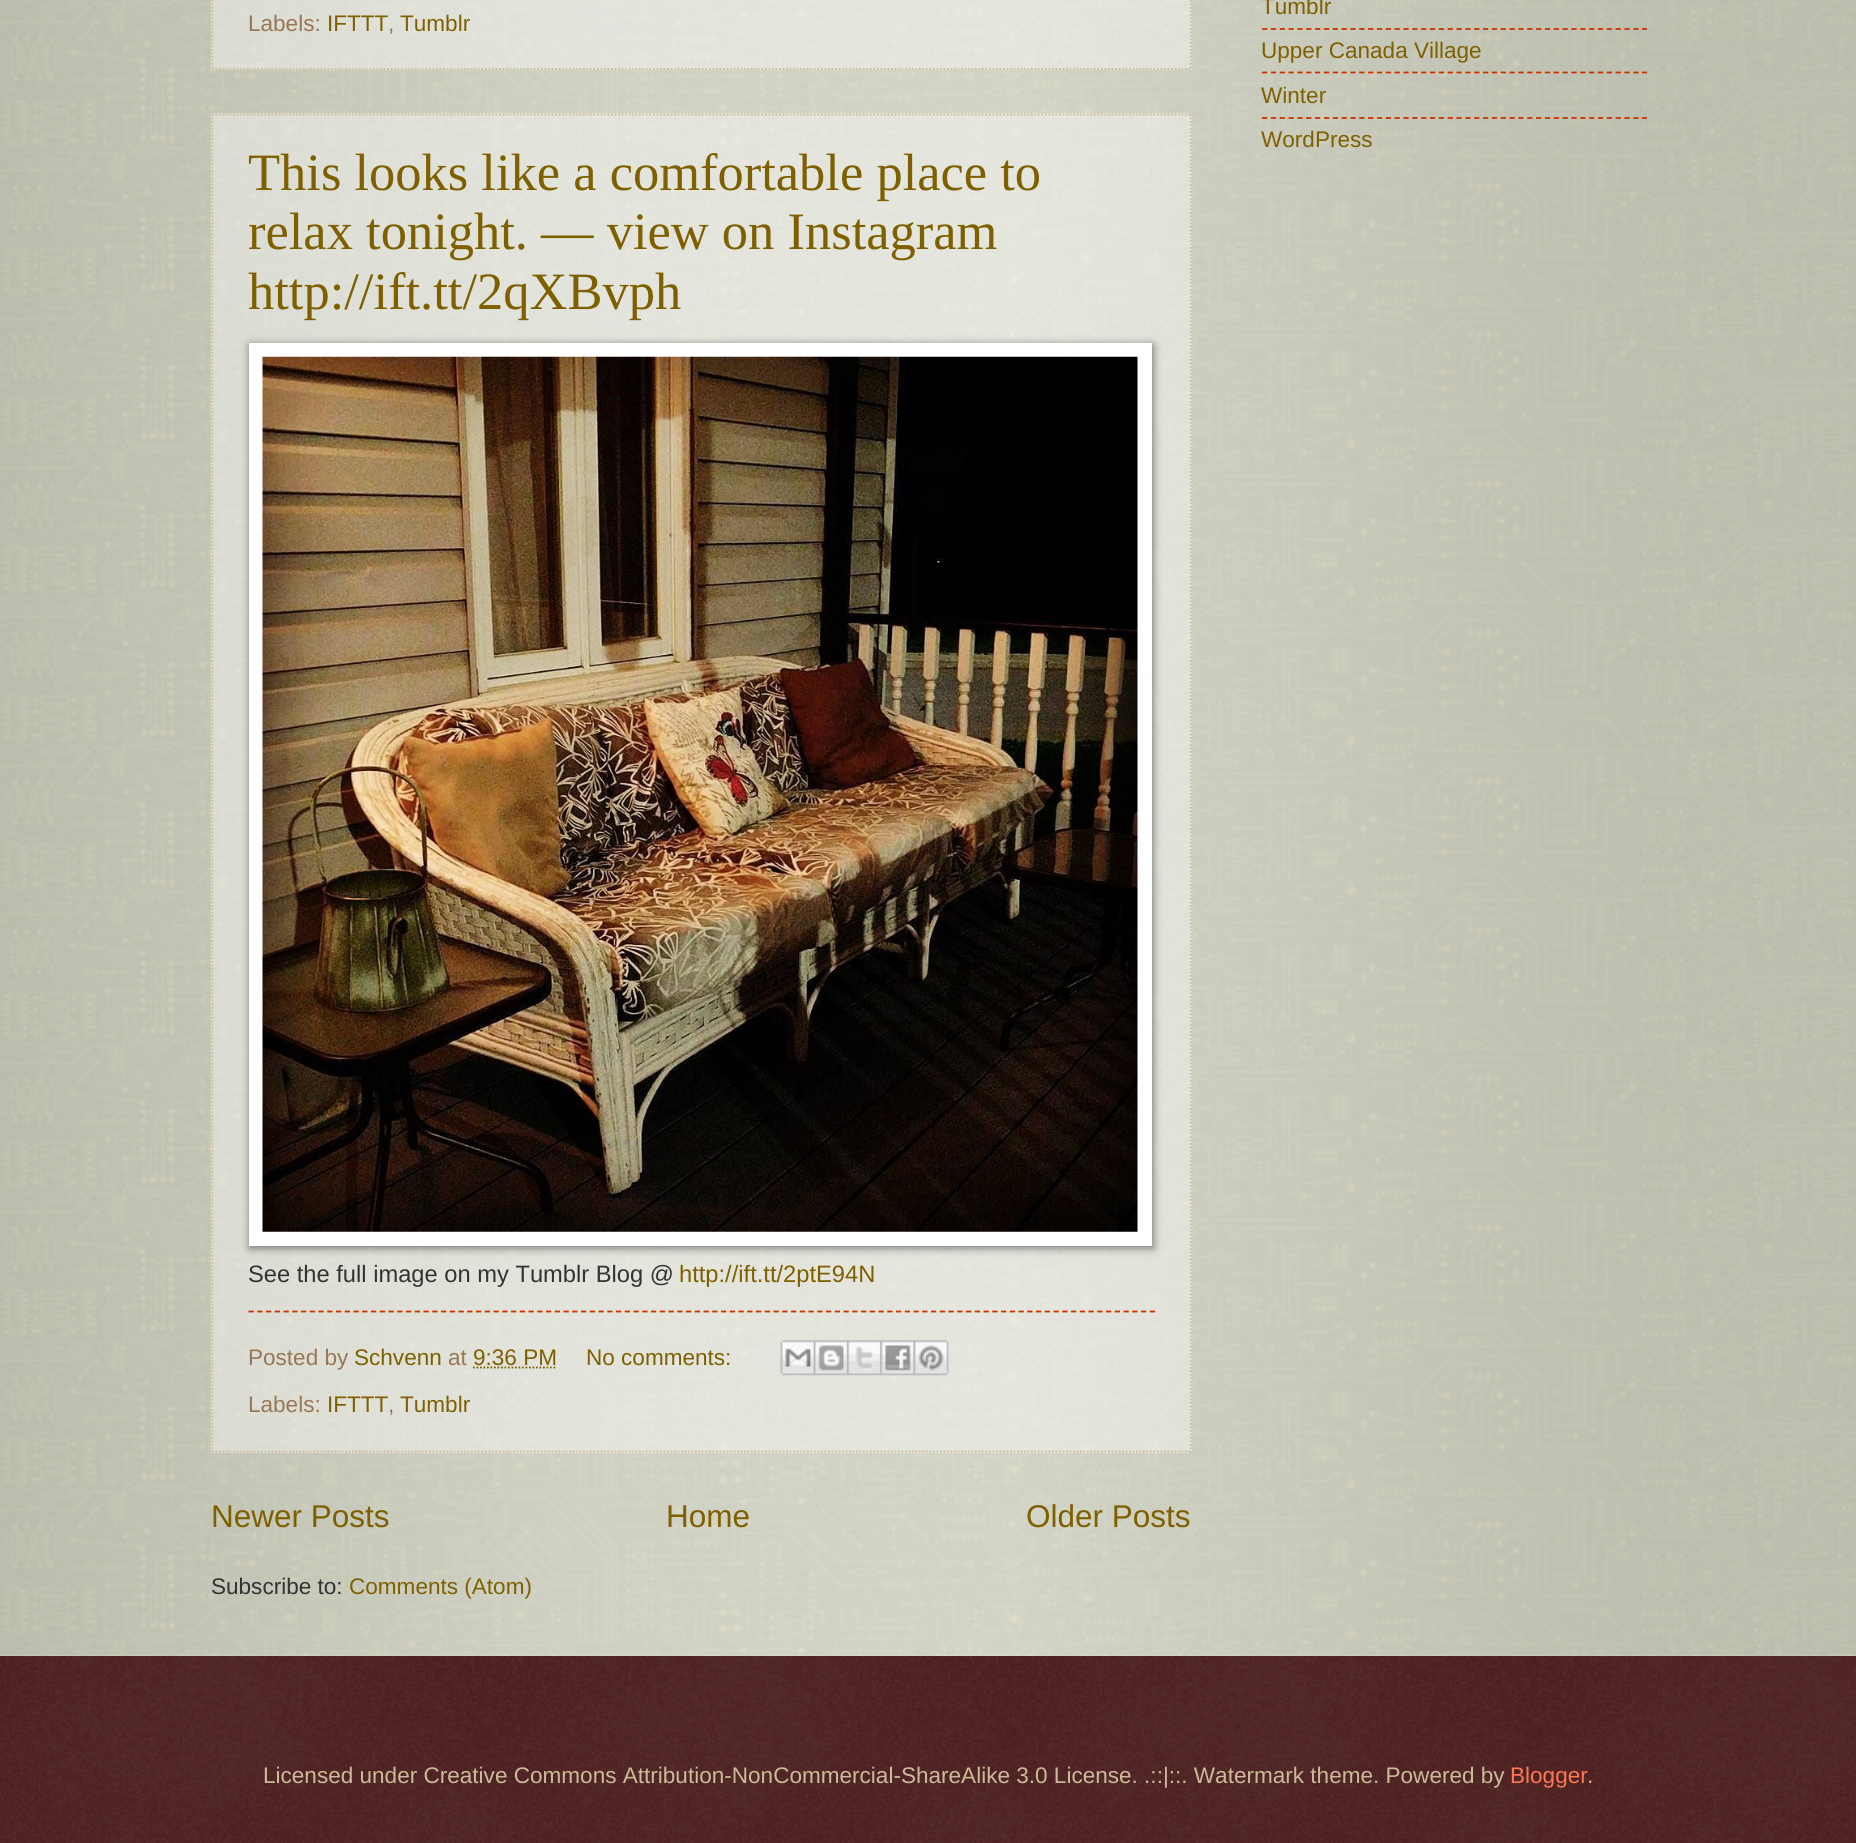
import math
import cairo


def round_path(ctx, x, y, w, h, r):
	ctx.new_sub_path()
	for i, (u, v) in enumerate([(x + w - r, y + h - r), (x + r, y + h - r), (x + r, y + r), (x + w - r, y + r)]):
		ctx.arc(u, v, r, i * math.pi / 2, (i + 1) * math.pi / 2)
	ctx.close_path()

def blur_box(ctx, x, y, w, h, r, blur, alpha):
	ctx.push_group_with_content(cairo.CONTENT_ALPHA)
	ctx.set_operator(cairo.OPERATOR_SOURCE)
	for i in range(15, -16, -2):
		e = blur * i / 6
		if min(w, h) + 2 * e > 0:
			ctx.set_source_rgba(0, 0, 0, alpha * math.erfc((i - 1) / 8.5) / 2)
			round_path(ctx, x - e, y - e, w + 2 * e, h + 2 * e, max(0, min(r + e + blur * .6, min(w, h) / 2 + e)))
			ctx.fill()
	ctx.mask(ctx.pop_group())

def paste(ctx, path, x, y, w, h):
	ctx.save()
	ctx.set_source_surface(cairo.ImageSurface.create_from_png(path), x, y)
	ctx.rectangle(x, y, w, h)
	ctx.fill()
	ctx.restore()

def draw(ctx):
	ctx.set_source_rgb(1, 1, 1)
	ctx.paint()
	paste(ctx, 'media/1.png', 0, 0, 1856, 1656)
	ctx.set_source_rgba(1, 1, 1, 0.4)
	ctx.rectangle(211, 0, 981, 70)
	ctx.fill()
	ctx.new_path()
	ctx.move_to(1191, -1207.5)
	ctx.line_to(1191, 70)
	ctx.set_source_rgb(0.8, 0.733, 0.6)
	ctx.set_line_width(1.8)
	ctx.set_dash([1.75, 1.75])
	ctx.stroke()
	ctx.new_path()
	ctx.move_to(212, 69)
	ctx.line_to(1192, 69)
	ctx.stroke()
	ctx.new_path()
	ctx.move_to(212.5, -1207.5)
	ctx.line_to(212.5, 70)
	ctx.stroke()
	ctx.select_font_face('Liberation Sans')
	ctx.set_font_size(22.55)
	ctx.set_source_rgb(0.6, 0.467, 0.333)
	ctx.move_to(248, 31)
	ctx.show_text('Labels:')
	ctx.set_source_rgb(0.498, 0.376, 0)
	ctx.move_to(327, 31)
	ctx.show_text('IFTTT')
	ctx.set_source_rgb(0.6, 0.467, 0.333)
	ctx.move_to(388, 31)
	ctx.show_text(',')
	ctx.set_source_rgb(0.498, 0.376, 0)
	ctx.move_to(400, 31)
	ctx.show_text('Tumblr')
	ctx.set_source_rgba(1, 1, 1, 0.4)
	ctx.rectangle(211, 113, 981, 1340)
	ctx.fill()
	ctx.new_path()
	ctx.move_to(212, 114.5)
	ctx.line_to(1192, 114.5)
	ctx.set_source_rgb(0.8, 0.733, 0.6)
	ctx.stroke()
	ctx.new_path()
	ctx.move_to(1191, 114)
	ctx.line_to(1191, 1452.5)
	ctx.stroke()
	ctx.new_path()
	ctx.move_to(212, 1451.5)
	ctx.line_to(1192, 1451.5)
	ctx.stroke()
	ctx.new_path()
	ctx.move_to(212.5, 114)
	ctx.line_to(212.5, 1452.5)
	ctx.stroke()
	ctx.select_font_face('Liberation Serif')
	ctx.set_font_size(52.5)
	ctx.set_source_rgb(0.498, 0.376, 0)
	for x, y, s in [
		(248, 190, 'This looks like a comfortable place to'),
		(248, 249, 'relax tonight. — view on Instagram'),
		(248, 309, 'http://ift.tt/2qXBvph'),
	]:
		ctx.move_to(x, y)
		ctx.show_text(s)
	ctx.set_source_rgb(0, 0, 0)
	blur_box(ctx, 250, 345, 903, 903, 0, 4.5, 0.5)
	ctx.set_source_rgb(1, 1, 1)
	ctx.rectangle(249, 343, 903, 903)
	ctx.fill()
	paste(ctx, 'media/2.png', 262, 356, 876, 876)
	ctx.select_font_face('Liberation Sans')
	ctx.set_font_size(23.7)
	ctx.set_source_rgb(0.2, 0.2, 0.2)
	ctx.move_to(248, 1282)
	ctx.show_text('See the full image on my Tumblr Blog @')
	ctx.set_source_rgb(0.498, 0.376, 0)
	ctx.move_to(679, 1282)
	ctx.show_text('http://ift.tt/2ptE94N')
	ctx.new_path()
	ctx.move_to(248.5, 1311.5)
	ctx.line_to(1155, 1311.5)
	ctx.set_source_rgb(0.8, 0.2, 0)
	ctx.set_dash([5.25, 3.5])
	ctx.stroke()
	ctx.set_font_size(22.55)
	ctx.set_source_rgb(0.6, 0.467, 0.333)
	ctx.move_to(248, 1365)
	ctx.show_text('Posted by')
	ctx.set_source_rgb(0.498, 0.376, 0)
	ctx.move_to(354, 1365)
	ctx.show_text('Schvenn')
	ctx.set_source_rgb(0.6, 0.467, 0.333)
	ctx.move_to(448, 1365)
	ctx.show_text('at')
	ctx.set_source_rgb(0.498, 0.376, 0)
	ctx.move_to(473, 1365)
	ctx.show_text('9:36 PM')
	ctx.new_path()
	ctx.move_to(473, 1367.5)
	ctx.line_to(557, 1367.5)
	ctx.set_dash([1.75, 1.75])
	ctx.stroke()
	ctx.move_to(586, 1365)
	ctx.show_text('No comments:')
	paste(ctx, 'media/3.png', 780, 1340, 36, 36)
	paste(ctx, 'media/4.png', 813, 1340, 36, 36)
	paste(ctx, 'media/5.png', 847, 1340, 35, 36)
	paste(ctx, 'media/6.png', 880, 1340, 36, 36)
	paste(ctx, 'media/7.png', 913, 1340, 36, 36)
	ctx.set_source_rgb(0.6, 0.467, 0.333)
	ctx.move_to(248, 1412)
	ctx.show_text('Labels:')
	ctx.set_source_rgb(0.498, 0.376, 0)
	ctx.move_to(327, 1412)
	ctx.show_text('IFTTT')
	ctx.set_source_rgb(0.6, 0.467, 0.333)
	ctx.move_to(388, 1412)
	ctx.show_text(',')
	ctx.set_source_rgb(0.498, 0.376, 0)
	ctx.move_to(400, 1412)
	ctx.show_text('Tumblr')
	ctx.set_font_size(31.5)
	for x, y, s in [
		(211, 1527, 'Newer Posts'),
		(666, 1527, 'Home'),
		(1026, 1527, 'Older Posts'),
	]:
		ctx.move_to(x, y)
		ctx.show_text(s)
	ctx.set_font_size(22.55)
	ctx.set_source_rgb(0.2, 0.2, 0.2)
	ctx.move_to(211, 1594)
	ctx.show_text('Subscribe to:')
	ctx.set_source_rgb(0.498, 0.376, 0)
	ctx.move_to(349, 1594)
	ctx.show_text('Comments (Atom)')
	ctx.move_to(1261, 14)
	ctx.show_text('Tumblr')
	ctx.new_path()
	ctx.move_to(1262, 29)
	ctx.line_to(1647, 29)
	ctx.set_source_rgb(0.8, 0.2, 0)
	ctx.set_dash([5.25, 3.59])
	ctx.stroke()
	ctx.set_source_rgb(0.498, 0.376, 0)
	ctx.move_to(1261, 58)
	ctx.show_text('Upper Canada Village')
	ctx.new_path()
	ctx.move_to(1262, 72.5)
	ctx.line_to(1647, 72.5)
	ctx.set_source_rgb(0.8, 0.2, 0)
	ctx.stroke()
	ctx.set_source_rgb(0.498, 0.376, 0)
	ctx.move_to(1261, 103)
	ctx.show_text('Winter')
	ctx.new_path()
	ctx.move_to(1262, 118)
	ctx.line_to(1647, 118)
	ctx.set_source_rgb(0.8, 0.2, 0)
	ctx.stroke()
	ctx.set_source_rgb(0.498, 0.376, 0)
	ctx.move_to(1261, 147)
	ctx.show_text('WordPress')
	ctx.set_source_rgb(0.2, 0, 0)
	ctx.rectangle(0, 1656, 1856, 187)
	ctx.fill()
	paste(ctx, 'media/8.png', 0, 1655, 1856, 188)
	ctx.set_source_rgb(0.8, 0.733, 0.6)
	ctx.move_to(263, 1783)
	ctx.show_text('Licensed under Creative Commons Attribution-NonCommercial-ShareAlike 3.0 License. .::|::. Watermark theme. Powered by')
	ctx.set_source_rgb(1, 0.467, 0.333)
	ctx.move_to(1510, 1783)
	ctx.show_text('Blogger')
	ctx.set_source_rgb(0.8, 0.733, 0.6)
	ctx.move_to(1587, 1783)
	ctx.show_text('.')


surface = cairo.ImageSurface(cairo.FORMAT_RGB24, 1856, 1843)
ctx = cairo.Context(surface)
options = cairo.FontOptions()
options.set_hint_metrics(cairo.HINT_METRICS_OFF)
options.set_hint_style(cairo.HINT_STYLE_NONE)
ctx.set_font_options(options)
ctx.set_miter_limit(4)
draw(ctx)
surface.write_to_png('image.png')
